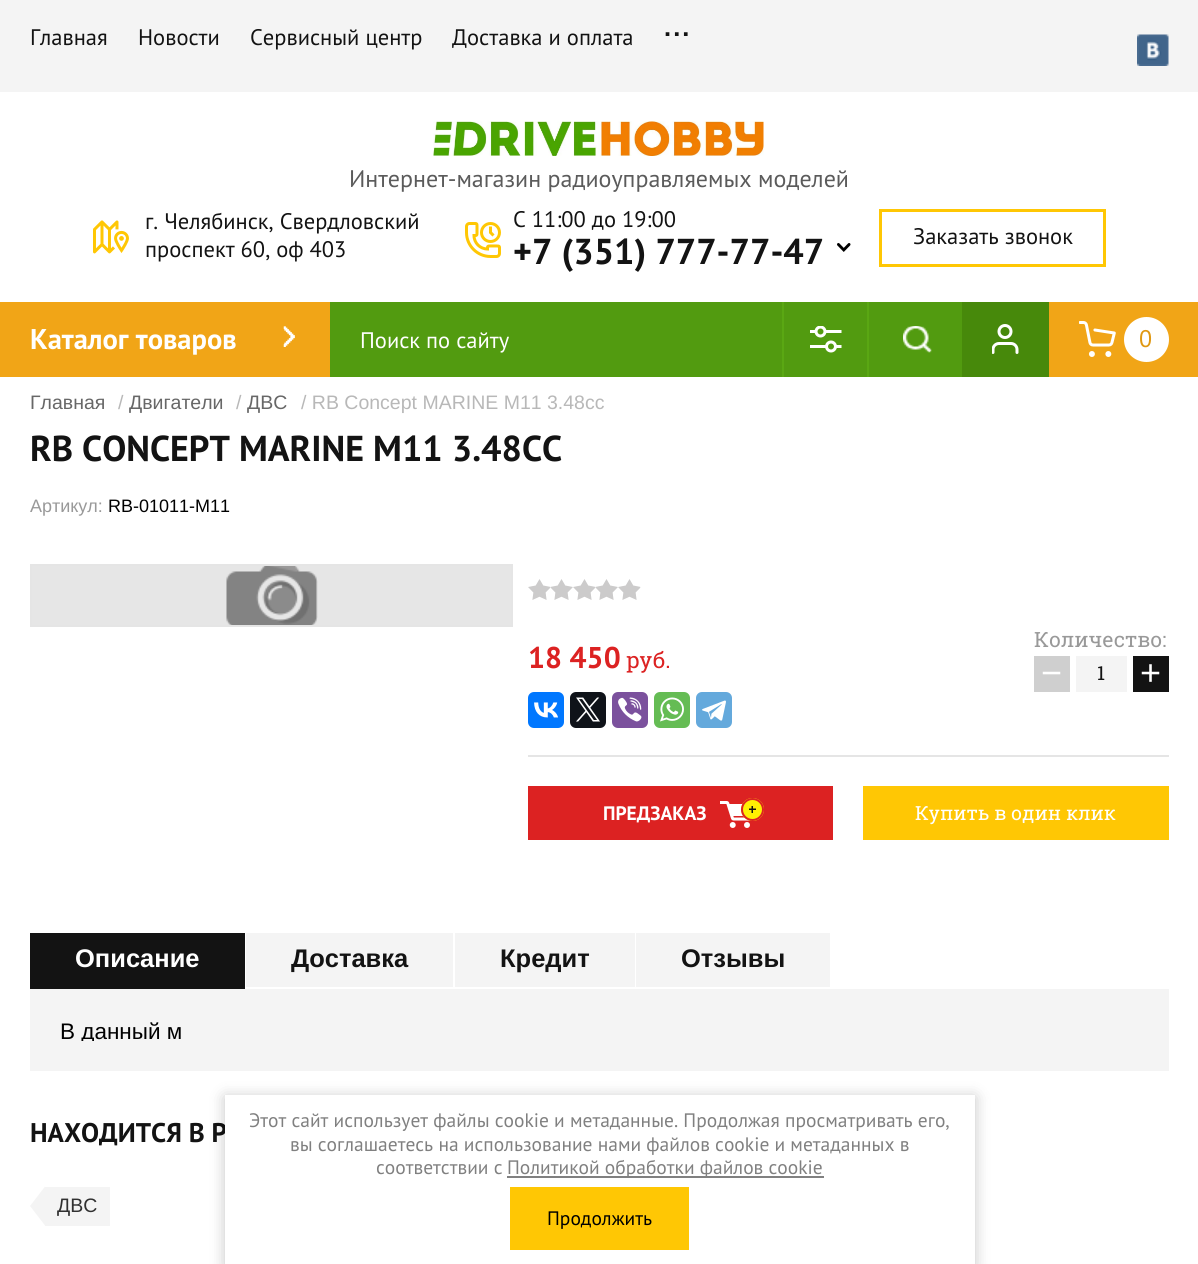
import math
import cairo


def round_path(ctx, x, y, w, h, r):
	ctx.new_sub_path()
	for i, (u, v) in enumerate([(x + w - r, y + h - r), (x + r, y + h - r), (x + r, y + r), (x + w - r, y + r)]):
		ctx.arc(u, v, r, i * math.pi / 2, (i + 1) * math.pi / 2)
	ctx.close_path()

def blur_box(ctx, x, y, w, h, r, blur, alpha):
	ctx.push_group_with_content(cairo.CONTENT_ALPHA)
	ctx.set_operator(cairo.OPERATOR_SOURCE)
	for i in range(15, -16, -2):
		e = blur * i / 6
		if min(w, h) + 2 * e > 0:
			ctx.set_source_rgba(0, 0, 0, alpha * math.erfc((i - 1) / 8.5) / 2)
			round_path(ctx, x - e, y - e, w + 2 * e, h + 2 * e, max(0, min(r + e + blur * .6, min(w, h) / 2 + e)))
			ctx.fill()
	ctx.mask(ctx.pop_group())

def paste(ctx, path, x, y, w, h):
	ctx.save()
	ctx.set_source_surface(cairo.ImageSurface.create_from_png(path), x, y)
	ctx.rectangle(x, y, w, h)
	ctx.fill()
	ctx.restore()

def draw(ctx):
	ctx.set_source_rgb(1, 1, 1)
	ctx.paint()
	ctx.set_source_rgb(0.957, 0.957, 0.957)
	ctx.rectangle(0, 0, 1198, 92)
	ctx.fill()
	ctx.select_font_face('PT Sans')
	ctx.set_font_size(22.5)
	ctx.set_source_rgb(0.078, 0.078, 0.078)
	for x, y, s in [
		(30, 45, 'Главная'),
		(138, 45, 'Новости'),
		(250, 45, 'Сервисный центр'),
		(452, 45, 'Доставка и оплата'),
	]:
		ctx.move_to(x, y)
		ctx.show_text(s)
	ctx.select_font_face('Roboto Slab')
	ctx.set_font_size(38)
	ctx.move_to(663, 36)
	ctx.show_text('...')
	paste(ctx, 'media/1.png', 1137, 34, 32, 32)
	paste(ctx, 'media/2.png', 433, 121, 331, 35)
	ctx.select_font_face('PT Sans')
	ctx.set_font_size(24)
	ctx.set_source_rgb(0.357, 0.357, 0.357)
	ctx.move_to(349, 187)
	ctx.show_text('Интернет-магазин радиоуправляемых моделей')
	paste(ctx, 'media/3.png', 93, 220, 36, 34)
	ctx.set_font_size(22.5)
	ctx.set_source_rgb(0.078, 0.078, 0.078)
	ctx.move_to(145, 229)
	ctx.show_text('г. Челябинск, Свердловский')
	ctx.move_to(145, 257)
	ctx.show_text('проспект 60, оф 403')
	paste(ctx, 'media/4.png', 465, 222, 36, 36)
	ctx.move_to(513, 227)
	ctx.show_text('C 11:00 до 19:00')
	ctx.select_font_face('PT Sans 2', cairo.FONT_SLANT_NORMAL, cairo.FONT_WEIGHT_BOLD)
	ctx.set_font_size(36)
	ctx.move_to(513, 264)
	ctx.show_text('+7 (351) 777-77-47')
	paste(ctx, 'media/5.png', 837, 243, 14, 9)
	ctx.rectangle(880.5, 210.5, 224, 55)
	ctx.set_source_rgb(1, 0.78, 0.016)
	ctx.set_line_width(3)
	ctx.stroke()
	ctx.select_font_face('PT Sans')
	ctx.set_font_size(22.5)
	ctx.set_source_rgb(0.078, 0.078, 0.078)
	ctx.move_to(913, 244)
	ctx.show_text('Заказать звонок')
	ctx.set_source_rgb(0.322, 0.608, 0.063)
	ctx.rectangle(330, 302, 632, 75)
	ctx.fill()
	ctx.set_source_rgb(0.945, 0.647, 0.09)
	ctx.rectangle(0, 302, 330, 75)
	ctx.fill()
	ctx.select_font_face('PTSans', cairo.FONT_SLANT_NORMAL, cairo.FONT_WEIGHT_BOLD)
	ctx.set_font_size(28.5)
	ctx.set_source_rgb(1, 1, 1)
	ctx.move_to(30, 349)
	ctx.show_text('Каталог товаров')
	paste(ctx, 'media/6.png', 283, 326, 12, 21)
	ctx.select_font_face('PT Sans')
	ctx.set_font_size(22.5)
	ctx.move_to(360, 348)
	ctx.show_text('Поиск по сайту')
	paste(ctx, 'media/7.png', 903, 326, 29, 27)
	ctx.set_source_rgb(0.353, 0.655, 0.078)
	ctx.rectangle(867, 302, 2, 75)
	ctx.fill()
	ctx.rectangle(782, 302, 2, 75)
	ctx.fill()
	paste(ctx, 'media/8.png', 810, 326, 32, 27)
	ctx.set_source_rgb(0.278, 0.537, 0.043)
	ctx.rectangle(962, 302, 87, 75)
	ctx.fill()
	paste(ctx, 'media/9.png', 992, 324, 27, 30)
	ctx.set_source_rgb(0.945, 0.647, 0.09)
	ctx.rectangle(1049, 302, 149, 75)
	ctx.fill()
	paste(ctx, 'media/10.png', 1079, 321, 37, 36)
	ctx.set_source_rgb(1, 1, 1)
	ctx.arc(1146.5, 339.5, 22.5, 0, 2 * math.pi)
	ctx.fill()
	ctx.set_font_size(24)
	ctx.set_source_rgb(0.878, 0.596, 0.071)
	ctx.move_to(1139, 347)
	ctx.show_text('0')
	ctx.select_font_face('Liberation Sans')
	ctx.set_font_size(19.5)
	ctx.set_source_rgb(0.404, 0.404, 0.404)
	ctx.move_to(30, 409)
	ctx.show_text('Главная')
	ctx.set_source_rgb(0.722, 0.722, 0.722)
	ctx.move_to(118, 409)
	ctx.show_text('/')
	ctx.set_source_rgb(0.404, 0.404, 0.404)
	ctx.move_to(129, 409)
	ctx.show_text('Двигатели')
	ctx.set_source_rgb(0.722, 0.722, 0.722)
	ctx.move_to(236, 409)
	ctx.show_text('/')
	ctx.set_source_rgb(0.404, 0.404, 0.404)
	ctx.move_to(247, 409)
	ctx.show_text('ДВС')
	ctx.set_source_rgb(0.722, 0.722, 0.722)
	ctx.move_to(301, 409)
	ctx.show_text('/ RB Concept MARINE M11 3.48cc')
	ctx.select_font_face('PTSans', cairo.FONT_SLANT_NORMAL, cairo.FONT_WEIGHT_BOLD)
	ctx.set_font_size(36)
	ctx.set_source_rgb(0.078, 0.078, 0.078)
	ctx.move_to(30, 461)
	ctx.show_text('RB CONCEPT MARINE M11 3.48CC')
	ctx.select_font_face('Liberation Sans')
	ctx.set_font_size(18)
	ctx.set_source_rgb(0.6, 0.6, 0.6)
	ctx.move_to(30, 512)
	ctx.show_text('Артикул:')
	ctx.set_source_rgb(0, 0, 0)
	ctx.move_to(108, 512)
	ctx.show_text('RB-01011-M11')
	ctx.set_source_rgb(0.902, 0.902, 0.902)
	ctx.rectangle(32, 566, 479, 59)
	ctx.fill()
	paste(ctx, 'media/11.png', 226, 566, 92, 59)
	ctx.rectangle(31, 565, 481, 61)
	ctx.set_source_rgb(0.898, 0.898, 0.898)
	ctx.set_line_width(2)
	ctx.stroke()
	paste(ctx, 'media/12.png', 528, 579, 113, 21)
	ctx.select_font_face('PTSans', cairo.FONT_SLANT_NORMAL, cairo.FONT_WEIGHT_BOLD)
	ctx.set_font_size(30)
	ctx.set_source_rgb(0.863, 0.133, 0.133)
	ctx.move_to(528, 668)
	ctx.show_text('18 450')
	ctx.select_font_face('Roboto Slab')
	ctx.set_font_size(22.5)
	ctx.move_to(626, 668)
	ctx.show_text('руб.')
	ctx.set_font_size(21)
	ctx.set_source_rgb(0.6, 0.6, 0.6)
	ctx.move_to(1034, 647)
	ctx.show_text('Количество:')
	ctx.set_source_rgb(0.812, 0.812, 0.812)
	ctx.rectangle(1034, 656, 36, 36)
	ctx.fill()
	ctx.select_font_face('Liberation Sans')
	ctx.set_font_size(36)
	ctx.set_source_rgb(1, 1, 1)
	ctx.move_to(1041, 685)
	ctx.show_text('−')
	ctx.set_source_rgb(0.957, 0.957, 0.957)
	ctx.rectangle(1076, 656, 51, 36)
	ctx.fill()
	ctx.select_font_face('Roboto Slab')
	ctx.set_font_size(19.5)
	ctx.set_source_rgb(0.078, 0.078, 0.078)
	ctx.move_to(1097, 680)
	ctx.show_text('1')
	ctx.rectangle(1133, 656, 36, 36)
	ctx.fill()
	ctx.select_font_face('Liberation Sans')
	ctx.set_font_size(36)
	ctx.set_source_rgb(1, 1, 1)
	ctx.move_to(1140, 685)
	ctx.show_text('+')
	ctx.set_source_rgb(0, 0.467, 1)
	round_path(ctx, 528, 692, 36, 36, 6)
	ctx.fill()
	paste(ctx, 'media/13.png', 534, 702, 24, 16)
	ctx.set_source_rgb(0.059, 0.078, 0.098)
	round_path(ctx, 570, 692, 36, 36, 6)
	ctx.fill()
	paste(ctx, 'media/14.png', 576, 697, 24, 25)
	ctx.set_source_rgb(0.482, 0.318, 0.616)
	round_path(ctx, 612, 692, 36, 36, 6)
	ctx.fill()
	paste(ctx, 'media/15.png', 618, 697, 24, 25)
	ctx.set_source_rgb(0.396, 0.737, 0.329)
	round_path(ctx, 654, 692, 36, 36, 6)
	ctx.fill()
	paste(ctx, 'media/16.png', 660, 697, 24, 25)
	ctx.set_source_rgb(0.392, 0.663, 0.863)
	round_path(ctx, 696, 692, 36, 36, 6)
	ctx.fill()
	paste(ctx, 'media/17.png', 702, 700, 24, 21)
	ctx.set_source_rgb(0.898, 0.898, 0.898)
	ctx.rectangle(528, 755, 641, 2)
	ctx.fill()
	ctx.set_source_rgb(0.863, 0.133, 0.133)
	ctx.rectangle(528, 786, 305, 54)
	ctx.fill()
	paste(ctx, 'media/18.png', 720, 801, 30, 27)
	ctx.select_font_face('PTSans', cairo.FONT_SLANT_NORMAL, cairo.FONT_WEIGHT_BOLD)
	ctx.set_font_size(19.5)
	ctx.set_source_rgb(1, 1, 1)
	ctx.move_to(603, 820)
	ctx.show_text('ПРЕДЗАКАЗ')
	ctx.set_source_rgb(1, 0.941, 0.012)
	ctx.new_path()
	ctx.arc(752.5, 809.5, 11.5, 0, 2 * math.pi)
	ctx.fill()
	paste(ctx, 'media/19.png', 749, 806, 7, 7)
	ctx.arc(752.5, 809.5, 10.5, 0, 2 * math.pi)
	ctx.set_source_rgb(0.863, 0.133, 0.133)
	ctx.stroke()
	ctx.set_source_rgb(1, 0.78, 0.016)
	ctx.rectangle(863, 786, 306, 54)
	ctx.fill()
	ctx.select_font_face('Roboto Slab')
	ctx.set_source_rgb(1, 1, 1)
	ctx.move_to(915, 820)
	ctx.show_text('Купить в один клик')
	ctx.set_source_rgb(0.078, 0.078, 0.078)
	ctx.rectangle(30, 933, 215, 56)
	ctx.fill()
	ctx.select_font_face('Liberation Sans', cairo.FONT_SLANT_NORMAL, cairo.FONT_WEIGHT_BOLD)
	ctx.set_font_size(25.5)
	ctx.set_source_rgb(1, 1, 1)
	ctx.move_to(75, 967)
	ctx.show_text('Описание')
	ctx.set_source_rgb(0.957, 0.957, 0.957)
	ctx.rectangle(246, 933, 207, 54)
	ctx.fill()
	ctx.set_source_rgb(0.078, 0.078, 0.078)
	ctx.move_to(291, 967)
	ctx.show_text('Доставка')
	ctx.set_source_rgb(0.957, 0.957, 0.957)
	ctx.rectangle(455, 933, 180, 54)
	ctx.fill()
	ctx.set_source_rgb(0.078, 0.078, 0.078)
	ctx.move_to(500, 967)
	ctx.show_text('Кредит')
	ctx.set_source_rgb(0.957, 0.957, 0.957)
	ctx.rectangle(636, 933, 194, 54)
	ctx.fill()
	ctx.set_source_rgb(0.078, 0.078, 0.078)
	ctx.move_to(681, 967)
	ctx.show_text('Отзывы')
	ctx.set_source_rgb(0.957, 0.957, 0.957)
	ctx.rectangle(30, 989, 1139, 82)
	ctx.fill()
	ctx.save()
	ctx.rectangle(60, 1019, 1079, 22)
	ctx.clip()
	ctx.select_font_face('Liberation Sans')
	ctx.set_font_size(22.5)
	ctx.set_source_rgb(0, 0, 0)
	ctx.move_to(60, 1039)
	ctx.show_text('В данный м')
	ctx.restore()
	ctx.select_font_face('PTSans', cairo.FONT_SLANT_NORMAL, cairo.FONT_WEIGHT_BOLD)
	ctx.set_font_size(27)
	ctx.set_source_rgb(0.078, 0.078, 0.078)
	ctx.move_to(30, 1142)
	ctx.show_text('НАХОДИТСЯ В Р')
	ctx.set_source_rgb(0.957, 0.957, 0.957)
	ctx.rectangle(45, 1187, 65, 39)
	ctx.fill()
	ctx.new_path()
	ctx.move_to(45, 1186.5)
	ctx.line_to(45, 1225.5)
	ctx.line_to(30, 1206)
	ctx.close_path()
	ctx.fill()
	ctx.select_font_face('Liberation Sans')
	ctx.set_font_size(19.5)
	ctx.set_source_rgb(0.192, 0.192, 0.192)
	ctx.move_to(57, 1212)
	ctx.show_text('ДВС')
	ctx.set_source_rgb(0, 0, 0)
	blur_box(ctx, 225, 1097, 750, 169, 0, 7.5, 0.23)
	ctx.set_source_rgb(1, 1, 1)
	ctx.rectangle(225, 1095, 750, 169)
	ctx.fill()
	ctx.select_font_face('PT Sans')
	ctx.set_source_rgb(0.502, 0.502, 0.502)
	for x, y, s in [
		(249, 1127, 'Этот сайт использует файлы cookie и метаданные. Продолжая просматривать его,'),
		(290, 1151, 'вы соглашаетесь на использование нами файлов cookie и метаданных в'),
		(376, 1174, 'соответствии с'),
	]:
		ctx.move_to(x, y)
		ctx.show_text(s)
	ctx.rectangle(507, 1176, 317, 2)
	ctx.fill()
	ctx.move_to(507, 1174)
	ctx.show_text('Политикой обработки файлов cookie')
	ctx.set_source_rgb(1, 0.78, 0.016)
	ctx.rectangle(510, 1187, 179, 63)
	ctx.fill()
	ctx.set_source_rgb(0, 0, 0)
	ctx.move_to(547, 1225)
	ctx.show_text('Продолжить')


surface = cairo.ImageSurface(cairo.FORMAT_RGB24, 1198, 1264)
ctx = cairo.Context(surface)
options = cairo.FontOptions()
options.set_hint_metrics(cairo.HINT_METRICS_OFF)
options.set_hint_style(cairo.HINT_STYLE_NONE)
ctx.set_font_options(options)
ctx.set_miter_limit(4)
draw(ctx)
surface.write_to_png('image.png')
